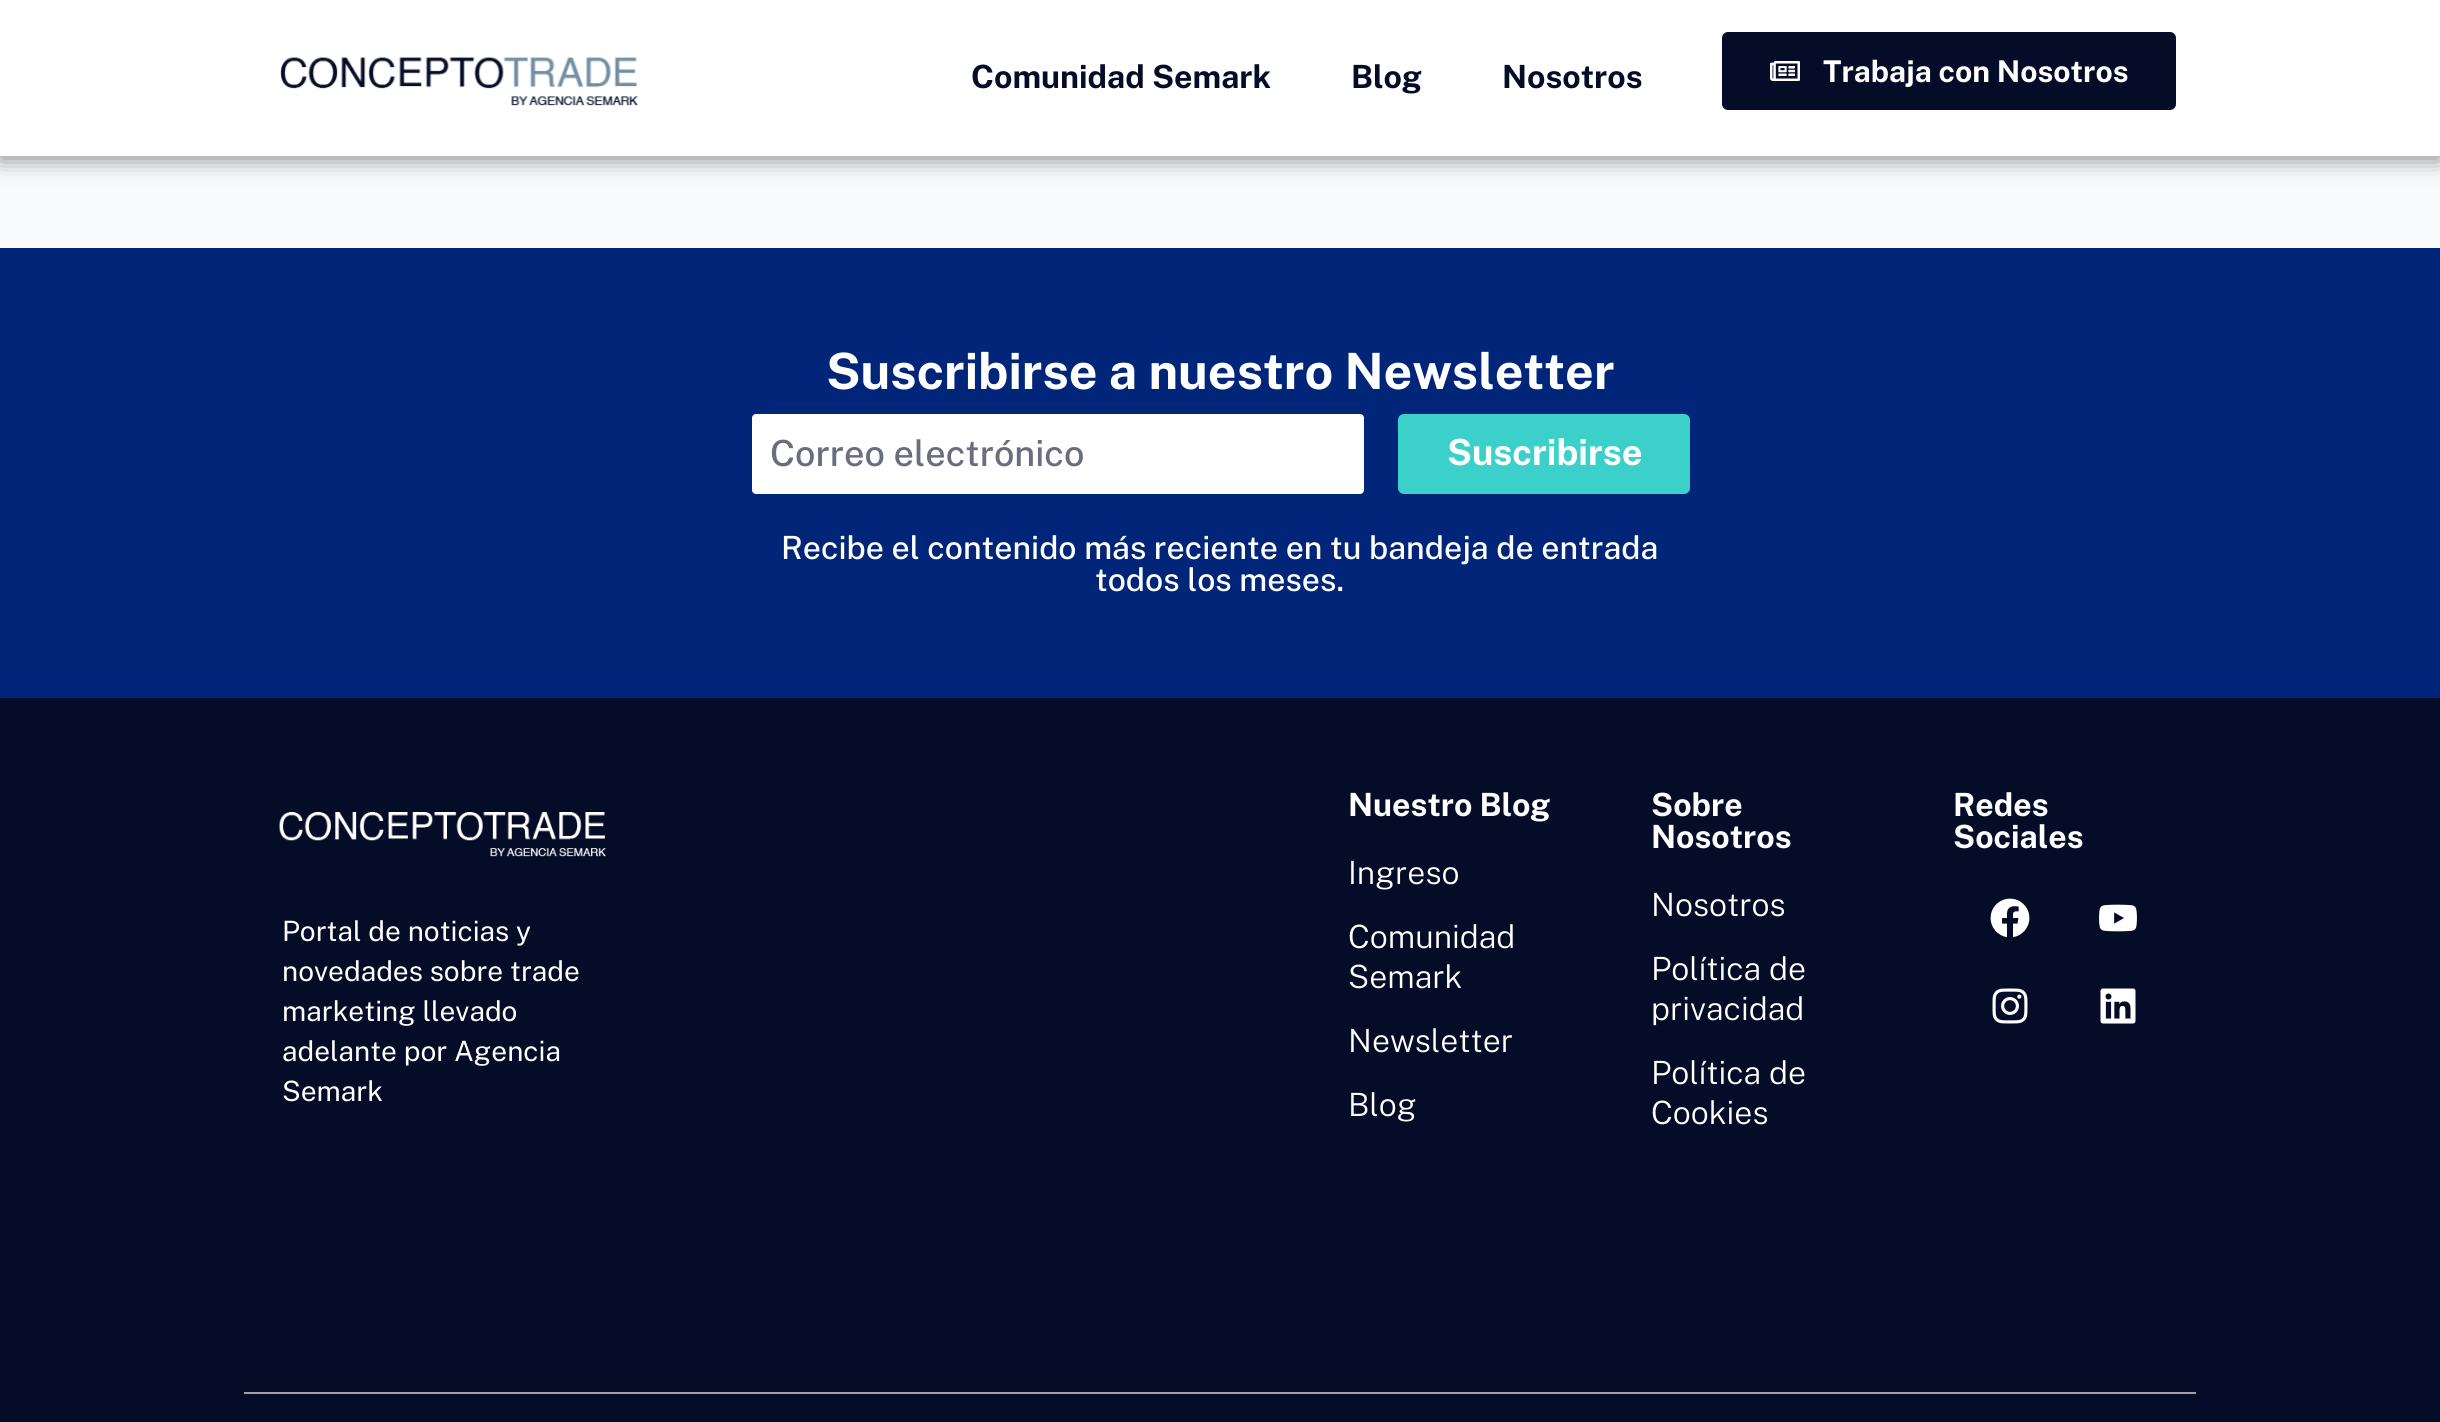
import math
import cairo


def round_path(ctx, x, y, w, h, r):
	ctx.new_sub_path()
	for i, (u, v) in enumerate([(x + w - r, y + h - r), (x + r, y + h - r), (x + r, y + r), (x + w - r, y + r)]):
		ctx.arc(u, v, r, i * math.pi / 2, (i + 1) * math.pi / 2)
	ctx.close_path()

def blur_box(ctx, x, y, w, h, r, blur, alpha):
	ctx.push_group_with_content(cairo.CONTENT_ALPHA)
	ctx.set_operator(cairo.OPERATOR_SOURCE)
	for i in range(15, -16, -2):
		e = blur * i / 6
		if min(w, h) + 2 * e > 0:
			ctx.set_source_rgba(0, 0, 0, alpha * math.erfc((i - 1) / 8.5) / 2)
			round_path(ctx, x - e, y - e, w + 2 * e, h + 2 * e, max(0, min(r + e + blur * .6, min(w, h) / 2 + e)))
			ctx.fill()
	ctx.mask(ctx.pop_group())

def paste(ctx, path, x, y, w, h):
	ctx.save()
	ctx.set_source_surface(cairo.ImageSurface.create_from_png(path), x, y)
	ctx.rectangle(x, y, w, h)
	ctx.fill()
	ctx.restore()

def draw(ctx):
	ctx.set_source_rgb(0.969, 0.98, 0.988)
	ctx.paint()
	ctx.set_source_rgb(0, 0, 0)
	blur_box(ctx, 0, 2, 2440, 156, 0, 12, 0.5)
	ctx.set_source_rgb(1, 1, 1)
	ctx.rectangle(0, 0, 2440, 156)
	ctx.fill()
	paste(ctx, 'media/1.png', 280, 57, 358, 49)
	ctx.select_font_face('Public Sans', cairo.FONT_SLANT_NORMAL, cairo.FONT_WEIGHT_BOLD)
	ctx.set_font_size(32)
	ctx.set_source_rgb(0.02, 0.047, 0.157)
	for x, y, s in [
		(971, 88, 'Comunidad Semark'),
		(1351, 88, 'Blog'),
		(1502, 88, 'Nosotros'),
	]:
		ctx.move_to(x, y)
		ctx.show_text(s)
	round_path(ctx, 1722, 32, 454, 78, 6)
	ctx.fill()
	paste(ctx, 'media/2.png', 1770, 61, 30, 20)
	ctx.set_font_size(30)
	ctx.set_source_rgb(1, 1, 1)
	ctx.move_to(1823, 82)
	ctx.show_text('Trabaja con Nosotros')
	ctx.set_source_rgb(0.004, 0.145, 0.475)
	ctx.rectangle(0, 248, 2440, 450)
	ctx.fill()
	ctx.set_font_size(50)
	ctx.set_source_rgb(1, 1, 1)
	ctx.move_to(826, 389)
	ctx.show_text('Suscribirse a nuestro Newsletter')
	round_path(ctx, 752, 414, 612, 80, 4)
	ctx.fill()
	ctx.select_font_face('Public Sans Medium')
	ctx.set_font_size(36)
	ctx.set_source_rgb(0.412, 0.427, 0.494)
	ctx.move_to(770, 466)
	ctx.show_text('Correo electrónico')
	ctx.set_source_rgb(0.231, 0.82, 0.792)
	round_path(ctx, 1398, 414, 292, 80, 6)
	ctx.fill()
	ctx.select_font_face('Public Sans', cairo.FONT_SLANT_NORMAL, cairo.FONT_WEIGHT_BOLD)
	ctx.set_source_rgb(1, 1, 1)
	ctx.move_to(1447, 465)
	ctx.show_text('Suscribirse')
	ctx.select_font_face('Public Sans Medium')
	ctx.set_font_size(32)
	ctx.move_to(781, 559)
	ctx.show_text('Recibe el contenido más reciente en tu bandeja de entrada')
	ctx.move_to(1095, 591)
	ctx.show_text('todos los meses.')
	ctx.set_source_rgb(0.02, 0.047, 0.157)
	ctx.rectangle(0, 698, 2440, 724)
	ctx.fill()
	ctx.select_font_face('Public Sans', cairo.FONT_SLANT_NORMAL, cairo.FONT_WEIGHT_BOLD)
	ctx.set_source_rgb(1, 1, 1)
	ctx.move_to(1348, 816)
	ctx.show_text('Nuestro Blog')
	ctx.select_font_face('Public Sans Light')
	for x, y, s in [
		(1348, 884, 'Ingreso'),
		(1348, 948, 'Comunidad'),
		(1348, 988, 'Semark'),
		(1348, 1052, 'Newsletter'),
		(1348, 1116, 'Blog'),
	]:
		ctx.move_to(x, y)
		ctx.show_text(s)
	ctx.select_font_face('Public Sans', cairo.FONT_SLANT_NORMAL, cairo.FONT_WEIGHT_BOLD)
	ctx.move_to(1651, 816)
	ctx.show_text('Sobre')
	ctx.move_to(1651, 848)
	ctx.show_text('Nosotros')
	ctx.select_font_face('Public Sans Light')
	for x, y, s in [
		(1651, 916, 'Nosotros'),
		(1651, 980, 'Política de'),
		(1651, 1020, 'privacidad'),
		(1651, 1084, 'Política de'),
		(1651, 1124, 'Cookies'),
	]:
		ctx.move_to(x, y)
		ctx.show_text(s)
	ctx.select_font_face('Public Sans', cairo.FONT_SLANT_NORMAL, cairo.FONT_WEIGHT_BOLD)
	ctx.move_to(1953, 816)
	ctx.show_text('Redes')
	ctx.move_to(1953, 848)
	ctx.show_text('Sociales')
	paste(ctx, 'media/3.png', 1990, 898, 40, 40)
	paste(ctx, 'media/4.png', 2099, 904, 38, 28)
	paste(ctx, 'media/5.png', 1992, 988, 36, 36)
	paste(ctx, 'media/6.png', 2100, 988, 36, 36)
	paste(ctx, 'media/7.png', 278, 812, 328, 45)
	ctx.select_font_face('Public Sans')
	ctx.set_font_size(28)
	for x, y, s in [
		(282, 941, 'Portal de noticias y'),
		(282, 981, 'novedades sobre trade'),
		(282, 1021, 'marketing llevado'),
		(282, 1061, 'adelante por Agencia'),
		(282, 1101, 'Semark'),
	]:
		ctx.move_to(x, y)
		ctx.show_text(s)
	ctx.set_source_rgb(0.627, 0.627, 0.627)
	ctx.rectangle(244, 1392, 1952, 2)
	ctx.fill()


surface = cairo.ImageSurface(cairo.FORMAT_RGB24, 2440, 1422)
ctx = cairo.Context(surface)
options = cairo.FontOptions()
options.set_hint_metrics(cairo.HINT_METRICS_OFF)
options.set_hint_style(cairo.HINT_STYLE_NONE)
ctx.set_font_options(options)
ctx.set_miter_limit(4)
draw(ctx)
surface.write_to_png('image.png')
